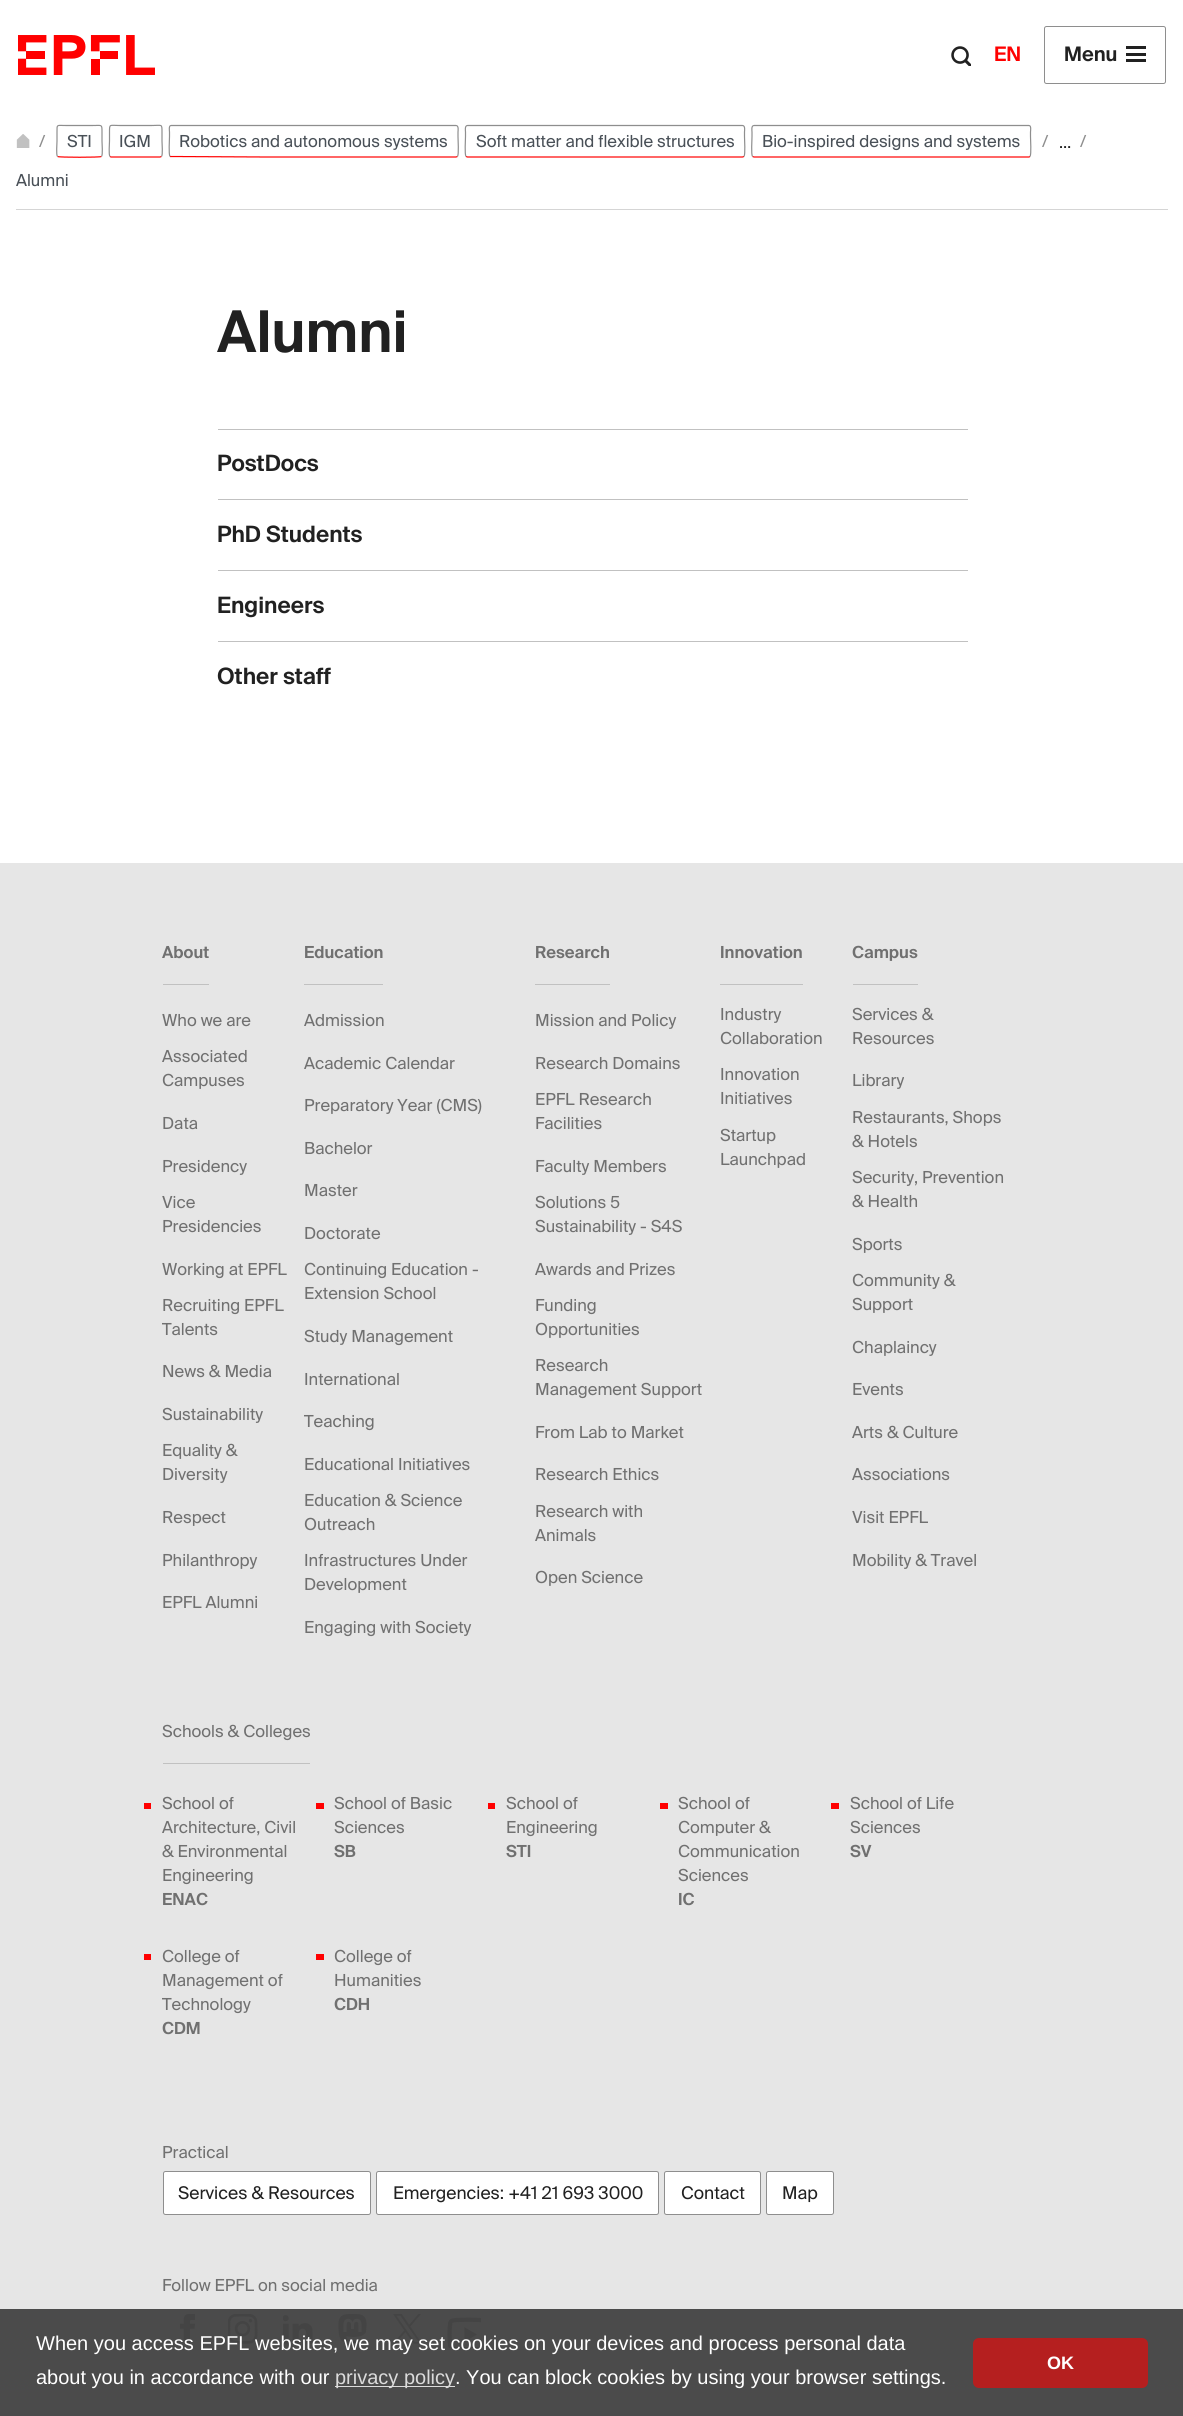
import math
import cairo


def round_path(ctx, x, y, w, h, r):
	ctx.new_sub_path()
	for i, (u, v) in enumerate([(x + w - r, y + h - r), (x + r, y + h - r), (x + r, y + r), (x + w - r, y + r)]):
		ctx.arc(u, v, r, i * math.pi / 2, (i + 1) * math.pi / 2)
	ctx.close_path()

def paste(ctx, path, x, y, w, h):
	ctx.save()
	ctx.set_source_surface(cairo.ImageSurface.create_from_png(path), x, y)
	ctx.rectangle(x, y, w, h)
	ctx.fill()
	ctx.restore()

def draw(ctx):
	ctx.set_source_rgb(1, 1, 1)
	ctx.paint()
	paste(ctx, 'media/1.png', 18, 35, 137, 40)
	paste(ctx, 'media/2.png', 951, 46, 20, 20)
	ctx.select_font_face('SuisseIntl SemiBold')
	ctx.set_font_size(20)
	ctx.set_source_rgb(1, 0, 0)
	ctx.move_to(994, 61)
	ctx.show_text('EN')
	round_path(ctx, 1044.5, 26.5, 121, 57, 2)
	ctx.set_source_rgb(0.557, 0.557, 0.557)
	ctx.set_line_width(1)
	ctx.stroke()
	ctx.set_source_rgb(0.129, 0.129, 0.129)
	ctx.move_to(1064, 61)
	ctx.show_text('Menu')
	ctx.rectangle(1126, 46, 20, 3)
	ctx.rectangle(1126, 53, 20, 3)
	ctx.rectangle(1126, 59, 20, 3)
	ctx.fill()
	ctx.set_source_rgb(0.835, 0.835, 0.835)
	ctx.rectangle(16, 209, 1152, 1)
	ctx.fill()
	paste(ctx, 'media/3.png', 16, 134, 14, 14)
	ctx.select_font_face('SuisseIntl')
	ctx.set_font_size(16.6)
	ctx.set_source_rgb(0.557, 0.557, 0.557)
	ctx.move_to(39, 147)
	ctx.show_text('/')
	ctx.new_path()
	ctx.move_to(101.5, 156.5)
	ctx.curve_to(100.5, 157.5, 58.5, 157.5, 57.5, 156.5)
	ctx.set_source_rgb(1, 0, 0)
	ctx.set_line_width(1.2)
	ctx.stroke()
	ctx.new_path()
	ctx.move_to(57.5, 156.5)
	ctx.curve_to(56, 155, 57, 143.5, 57, 141)
	ctx.line_to(57, 132)
	ctx.curve_to(57, 124, 56.5, 125.5, 65.5, 125.5)
	ctx.line_to(93, 125.5)
	ctx.curve_to(102, 125.5, 102, 124, 102, 132)
	ctx.line_to(102, 141)
	ctx.curve_to(102, 143.5, 103, 155, 101.5, 156.5)
	ctx.set_source_rgb(0.557, 0.557, 0.557)
	ctx.stroke()
	ctx.set_source_rgb(0.286, 0.314, 0.341)
	ctx.move_to(67, 147)
	ctx.show_text('STI')
	ctx.new_path()
	ctx.move_to(161.5, 156.5)
	ctx.line_to(160, 157)
	ctx.line_to(111, 157)
	ctx.line_to(110, 156.5)
	ctx.set_source_rgb(1, 0, 0)
	ctx.stroke()
	ctx.new_path()
	ctx.move_to(110, 156.5)
	ctx.curve_to(108.5, 155, 109.5, 143.5, 109.5, 141)
	ctx.line_to(109.5, 132)
	ctx.curve_to(109.5, 123.5, 109.5, 125.5, 119.5, 125.5)
	ctx.line_to(152, 125.5)
	ctx.curve_to(162, 125.5, 162, 123.5, 162, 132)
	ctx.line_to(162, 141)
	ctx.curve_to(162, 143.5, 163, 155, 161.5, 156.5)
	ctx.set_source_rgb(0.557, 0.557, 0.557)
	ctx.stroke()
	ctx.set_source_rgb(0.286, 0.314, 0.341)
	ctx.move_to(119, 147)
	ctx.show_text('IGM')
	ctx.new_path()
	ctx.move_to(457.5, 156.5)
	ctx.line_to(456, 157)
	ctx.line_to(266, 157)
	ctx.line_to(170, 156.5)
	ctx.set_source_rgb(1, 0, 0)
	ctx.stroke()
	ctx.new_path()
	ctx.move_to(170, 156.5)
	ctx.curve_to(168.5, 154.5, 169.5, 139.5, 169.5, 136.5)
	ctx.line_to(169.5, 132)
	ctx.curve_to(169.5, 131, 168.5, 125.5, 171, 125.5)
	ctx.line_to(456, 125.5)
	ctx.curve_to(459, 125.5, 458, 131, 458, 132)
	ctx.line_to(458, 136.5)
	ctx.curve_to(458, 139.5, 459, 154.5, 457.5, 156.5)
	ctx.set_source_rgb(0.557, 0.557, 0.557)
	ctx.stroke()
	ctx.set_source_rgb(0.286, 0.314, 0.341)
	ctx.move_to(179, 147)
	ctx.show_text('Robotics and autonomous systems')
	ctx.new_path()
	ctx.move_to(744, 156.5)
	ctx.line_to(742.5, 157)
	ctx.line_to(467.5, 157)
	ctx.line_to(466, 156.5)
	ctx.set_source_rgb(1, 0, 0)
	ctx.stroke()
	ctx.new_path()
	ctx.move_to(466, 156.5)
	ctx.curve_to(464.5, 154.5, 465.5, 139.5, 465.5, 136.5)
	ctx.line_to(465.5, 132)
	ctx.curve_to(465.5, 131, 464.5, 125.5, 467.5, 125.5)
	ctx.line_to(742.5, 125.5)
	ctx.curve_to(745.5, 125.5, 744.5, 131, 744.5, 132)
	ctx.line_to(744.5, 136.5)
	ctx.curve_to(744.5, 139.5, 745.5, 154.5, 744, 156.5)
	ctx.set_source_rgb(0.557, 0.557, 0.557)
	ctx.stroke()
	ctx.set_source_rgb(0.286, 0.314, 0.341)
	ctx.move_to(476, 147)
	ctx.show_text('Soft matter and flexible structures')
	ctx.new_path()
	ctx.move_to(1030, 156.5)
	ctx.line_to(1029, 157)
	ctx.line_to(754, 157)
	ctx.line_to(752.5, 156.5)
	ctx.set_source_rgb(1, 0, 0)
	ctx.stroke()
	ctx.new_path()
	ctx.move_to(752.5, 156.5)
	ctx.curve_to(751, 154.5, 752, 139.5, 752, 136.5)
	ctx.line_to(752, 132)
	ctx.curve_to(752, 131, 751, 125.5, 754, 125.5)
	ctx.line_to(1029, 125.5)
	ctx.curve_to(1031.5, 125.5, 1030.5, 131, 1030.5, 132)
	ctx.line_to(1030.5, 136.5)
	ctx.curve_to(1030.5, 139.5, 1031.5, 154.5, 1030, 156.5)
	ctx.set_source_rgb(0.557, 0.557, 0.557)
	ctx.stroke()
	ctx.set_source_rgb(0.286, 0.314, 0.341)
	ctx.move_to(762, 147)
	ctx.show_text('Bio-inspired designs and systems')
	ctx.set_source_rgb(0.557, 0.557, 0.557)
	ctx.move_to(1042, 147)
	ctx.show_text('/')
	ctx.set_source_rgb(0.129, 0.129, 0.129)
	ctx.move_to(1059, 148)
	ctx.show_text('…')
	ctx.set_source_rgb(0.557, 0.557, 0.557)
	ctx.move_to(1080, 147)
	ctx.show_text('/')
	ctx.set_source_rgb(0.286, 0.314, 0.341)
	ctx.move_to(16, 186)
	ctx.show_text('Alumni')
	ctx.select_font_face('SuisseIntl SemiBold')
	ctx.set_font_size(57.5)
	ctx.set_source_rgb(0.129, 0.129, 0.129)
	ctx.move_to(217, 352)
	ctx.show_text('Alumni')
	ctx.set_source_rgb(0.757, 0.757, 0.757)
	ctx.rectangle(218, 429, 750, 1)
	ctx.fill()
	ctx.set_font_size(22.5)
	ctx.set_source_rgb(0.129, 0.129, 0.129)
	ctx.move_to(217, 471)
	ctx.show_text('PostDocs')
	ctx.set_source_rgb(0.757, 0.757, 0.757)
	ctx.rectangle(218, 499, 750, 1)
	ctx.fill()
	ctx.set_source_rgb(0.129, 0.129, 0.129)
	ctx.move_to(217, 542)
	ctx.show_text('PhD Students')
	ctx.set_source_rgb(0.757, 0.757, 0.757)
	ctx.rectangle(218, 570, 750, 1)
	ctx.fill()
	ctx.set_source_rgb(0.129, 0.129, 0.129)
	ctx.move_to(217, 613)
	ctx.show_text('Engineers')
	ctx.set_source_rgb(0.757, 0.757, 0.757)
	ctx.rectangle(218, 641, 750, 1)
	ctx.fill()
	ctx.set_source_rgb(0.129, 0.129, 0.129)
	ctx.move_to(217, 684)
	ctx.show_text('Other staff')
	ctx.set_source_rgb(0.902, 0.902, 0.902)
	ctx.rectangle(0, 863, 1183, 1446)
	ctx.fill()
	ctx.set_source_rgb(0.294, 0.294, 0.294)
	ctx.rectangle(0, 2309, 1183, 107)
	ctx.fill()
	ctx.set_source_rgb(0.757, 0.757, 0.757)
	ctx.rectangle(163, 984, 46, 1)
	ctx.fill()
	ctx.set_font_size(16.6)
	ctx.set_source_rgb(0.439, 0.439, 0.439)
	ctx.move_to(162, 958)
	ctx.show_text('About')
	ctx.select_font_face('SuisseIntl')
	for x, y, s in [
		(162, 1026, 'Who we are'),
		(162, 1062, 'Associated'),
		(162, 1086, 'Campuses'),
		(162, 1129, 'Data'),
		(162, 1172, 'Presidency'),
		(162, 1208, 'Vice'),
		(162, 1232, 'Presidencies'),
		(162, 1275, 'Working at EPFL'),
		(162, 1311, 'Recruiting EPFL'),
		(162, 1335, 'Talents'),
		(162, 1377, 'News & Media'),
		(162, 1420, 'Sustainability'),
		(162, 1456, 'Equality &'),
		(162, 1480, 'Diversity'),
		(162, 1523, 'Respect'),
		(162, 1566, 'Philanthropy'),
		(162, 1608, 'EPFL Alumni'),
	]:
		ctx.move_to(x, y)
		ctx.show_text(s)
	ctx.set_source_rgb(0.757, 0.757, 0.757)
	ctx.rectangle(304, 984, 79, 1)
	ctx.fill()
	ctx.select_font_face('SuisseIntl SemiBold')
	ctx.set_source_rgb(0.439, 0.439, 0.439)
	ctx.move_to(304, 958)
	ctx.show_text('Education')
	ctx.select_font_face('SuisseIntl')
	for x, y, s in [
		(304, 1026, 'Admission'),
		(304, 1069, 'Academic Calendar'),
		(304, 1111, 'Preparatory Year (CMS)'),
		(304, 1154, 'Bachelor'),
		(304, 1196, 'Master'),
		(304, 1239, 'Doctorate'),
		(304, 1275, 'Continuing Education -'),
		(304, 1299, 'Extension School'),
		(304, 1342, 'Study Management'),
		(304, 1385, 'International'),
		(304, 1427, 'Teaching'),
		(304, 1470, 'Educational Initiatives'),
		(304, 1506, 'Education & Science'),
		(304, 1530, 'Outreach'),
		(304, 1566, 'Infrastructures Under'),
		(304, 1590, 'Development'),
		(304, 1633, 'Engaging with Society'),
	]:
		ctx.move_to(x, y)
		ctx.show_text(s)
	ctx.set_source_rgb(0.757, 0.757, 0.757)
	ctx.rectangle(535, 984, 75, 1)
	ctx.fill()
	ctx.select_font_face('SuisseIntl SemiBold')
	ctx.set_source_rgb(0.439, 0.439, 0.439)
	ctx.move_to(535, 958)
	ctx.show_text('Research')
	ctx.select_font_face('SuisseIntl')
	for x, y, s in [
		(535, 1026, 'Mission and Policy'),
		(535, 1069, 'Research Domains'),
		(535, 1105, 'EPFL Research'),
		(535, 1129, 'Facilities'),
		(535, 1172, 'Faculty Members'),
		(535, 1208, 'Solutions 5'),
		(535, 1232, 'Sustainability - S4S'),
		(535, 1275, 'Awards and Prizes'),
		(535, 1311, 'Funding'),
		(535, 1335, 'Opportunities'),
		(535, 1371, 'Research'),
		(535, 1395, 'Management Support'),
		(535, 1438, 'From Lab to Market'),
		(535, 1480, 'Research Ethics'),
		(535, 1517, 'Research with'),
		(535, 1541, 'Animals'),
		(535, 1583, 'Open Science'),
	]:
		ctx.move_to(x, y)
		ctx.show_text(s)
	ctx.set_source_rgb(0.757, 0.757, 0.757)
	ctx.rectangle(720, 984, 83, 1)
	ctx.fill()
	ctx.select_font_face('SuisseIntl SemiBold')
	ctx.set_source_rgb(0.439, 0.439, 0.439)
	ctx.move_to(720, 958)
	ctx.show_text('Innovation')
	ctx.select_font_face('SuisseIntl')
	for x, y, s in [
		(720, 1020, 'Industry'),
		(720, 1044, 'Collaboration'),
		(720, 1080, 'Innovation'),
		(720, 1104, 'Initiatives'),
		(720, 1141, 'Startup'),
		(720, 1165, 'Launchpad'),
	]:
		ctx.move_to(x, y)
		ctx.show_text(s)
	ctx.set_source_rgb(0.757, 0.757, 0.757)
	ctx.rectangle(853, 984, 65, 1)
	ctx.fill()
	ctx.select_font_face('SuisseIntl SemiBold')
	ctx.set_source_rgb(0.439, 0.439, 0.439)
	ctx.move_to(852, 958)
	ctx.show_text('Campus')
	ctx.select_font_face('SuisseIntl')
	for x, y, s in [
		(852, 1020, 'Services &'),
		(852, 1044, 'Resources'),
		(852, 1086, 'Library'),
		(852, 1123, 'Restaurants, Shops'),
		(852, 1147, '& Hotels'),
		(852, 1183, 'Security, Prevention'),
		(852, 1207, '& Health'),
		(852, 1250, 'Sports'),
		(852, 1286, 'Community &'),
		(852, 1310, 'Support'),
		(852, 1353, 'Chaplaincy'),
		(852, 1395, 'Events'),
		(852, 1438, 'Arts & Culture'),
		(852, 1480, 'Associations'),
		(852, 1523, 'Visit EPFL'),
		(852, 1566, 'Mobility & Travel'),
	]:
		ctx.move_to(x, y)
		ctx.show_text(s)
	ctx.set_source_rgb(0.757, 0.757, 0.757)
	ctx.rectangle(163, 1763, 147, 1)
	ctx.fill()
	ctx.set_source_rgb(0.439, 0.439, 0.439)
	ctx.move_to(162, 1737)
	ctx.show_text('Schools & Colleges')
	ctx.set_source_rgb(1, 0, 0)
	ctx.rectangle(144, 1803, 7, 6)
	ctx.fill()
	ctx.set_source_rgb(0.439, 0.439, 0.439)
	for x, y, s in [
		(162, 1809, 'School of'),
		(162, 1833, 'Architecture, Civil'),
		(162, 1857, '& Environmental'),
		(162, 1881, 'Engineering'),
	]:
		ctx.move_to(x, y)
		ctx.show_text(s)
	ctx.select_font_face('SuisseIntl SemiBold')
	ctx.move_to(162, 1905)
	ctx.show_text('ENAC')
	ctx.set_source_rgb(1, 0, 0)
	ctx.rectangle(316, 1803, 8, 6)
	ctx.fill()
	ctx.select_font_face('SuisseIntl')
	ctx.set_source_rgb(0.439, 0.439, 0.439)
	ctx.move_to(334, 1809)
	ctx.show_text('School of Basic')
	ctx.move_to(334, 1833)
	ctx.show_text('Sciences')
	ctx.select_font_face('SuisseIntl SemiBold')
	ctx.move_to(334, 1857)
	ctx.show_text('SB')
	ctx.set_source_rgb(1, 0, 0)
	ctx.rectangle(488, 1803, 7, 6)
	ctx.fill()
	ctx.select_font_face('SuisseIntl')
	ctx.set_source_rgb(0.439, 0.439, 0.439)
	ctx.move_to(506, 1809)
	ctx.show_text('School of')
	ctx.move_to(506, 1833)
	ctx.show_text('Engineering')
	ctx.select_font_face('SuisseIntl SemiBold')
	ctx.move_to(506, 1857)
	ctx.show_text('STI')
	ctx.set_source_rgb(1, 0, 0)
	ctx.rectangle(660, 1803, 8, 6)
	ctx.fill()
	ctx.select_font_face('SuisseIntl')
	ctx.set_source_rgb(0.439, 0.439, 0.439)
	for x, y, s in [
		(678, 1809, 'School of'),
		(678, 1833, 'Computer &'),
		(678, 1857, 'Communication'),
		(678, 1881, 'Sciences'),
	]:
		ctx.move_to(x, y)
		ctx.show_text(s)
	ctx.select_font_face('SuisseIntl SemiBold')
	ctx.move_to(678, 1905)
	ctx.show_text('IC')
	ctx.set_source_rgb(1, 0, 0)
	ctx.rectangle(831, 1803, 8, 6)
	ctx.fill()
	ctx.select_font_face('SuisseIntl')
	ctx.set_source_rgb(0.439, 0.439, 0.439)
	ctx.move_to(850, 1809)
	ctx.show_text('School of Life')
	ctx.move_to(850, 1833)
	ctx.show_text('Sciences')
	ctx.select_font_face('SuisseIntl SemiBold')
	ctx.move_to(850, 1857)
	ctx.show_text('SV')
	ctx.set_source_rgb(1, 0, 0)
	ctx.rectangle(144, 1954, 7, 6)
	ctx.fill()
	ctx.select_font_face('SuisseIntl')
	ctx.set_source_rgb(0.439, 0.439, 0.439)
	for x, y, s in [
		(162, 1962, 'College of'),
		(162, 1986, 'Management of'),
		(162, 2010, 'Technology'),
	]:
		ctx.move_to(x, y)
		ctx.show_text(s)
	ctx.select_font_face('SuisseIntl SemiBold')
	ctx.move_to(162, 2034)
	ctx.show_text('CDM')
	ctx.set_source_rgb(1, 0, 0)
	ctx.rectangle(316, 1954, 8, 6)
	ctx.fill()
	ctx.select_font_face('SuisseIntl')
	ctx.set_source_rgb(0.439, 0.439, 0.439)
	ctx.move_to(334, 1962)
	ctx.show_text('College of')
	ctx.move_to(334, 1986)
	ctx.show_text('Humanities')
	ctx.select_font_face('SuisseIntl SemiBold')
	ctx.move_to(334, 2010)
	ctx.show_text('CDH')
	ctx.select_font_face('SuisseIntl')
	ctx.move_to(162, 2158)
	ctx.show_text('Practical')
	ctx.set_source_rgb(1, 1, 1)
	round_path(ctx, 163.5, 2171.5, 207, 43, 2)
	ctx.fill_preserve()
	ctx.set_source_rgb(0.557, 0.557, 0.557)
	ctx.set_line_width(1)
	ctx.stroke()
	ctx.set_font_size(17.5)
	ctx.set_source_rgb(0.129, 0.129, 0.129)
	ctx.move_to(178, 2199)
	ctx.show_text('Services & Resources')
	ctx.set_source_rgb(1, 1, 1)
	round_path(ctx, 376.5, 2171.5, 282, 43, 2)
	ctx.fill_preserve()
	ctx.set_source_rgb(0.557, 0.557, 0.557)
	ctx.stroke()
	ctx.set_source_rgb(0.129, 0.129, 0.129)
	ctx.move_to(393, 2199)
	ctx.show_text('Emergencies: +41 21 693 3000')
	ctx.set_source_rgb(1, 1, 1)
	round_path(ctx, 664.5, 2171.5, 96, 43, 2)
	ctx.fill_preserve()
	ctx.set_source_rgb(0.557, 0.557, 0.557)
	ctx.stroke()
	ctx.set_source_rgb(0.129, 0.129, 0.129)
	ctx.move_to(681, 2199)
	ctx.show_text('Contact')
	ctx.set_source_rgb(1, 1, 1)
	round_path(ctx, 766.5, 2171.5, 67, 43, 2)
	ctx.fill_preserve()
	ctx.set_source_rgb(0.557, 0.557, 0.557)
	ctx.stroke()
	ctx.set_source_rgb(0.129, 0.129, 0.129)
	ctx.move_to(782, 2199)
	ctx.show_text('Map')
	ctx.set_font_size(16.6)
	ctx.set_source_rgb(0.439, 0.439, 0.439)
	ctx.move_to(162, 2291)
	ctx.show_text('Follow EPFL on social media')
	paste(ctx, 'media/4.png', 180, 2314, 15, 30)
	paste(ctx, 'media/5.png', 228, 2314, 30, 30)
	paste(ctx, 'media/6.png', 283, 2315, 30, 29)
	paste(ctx, 'media/7.png', 338, 2314, 29, 30)
	paste(ctx, 'media/8.png', 393, 2314, 29, 30)
	paste(ctx, 'media/9.png', 447, 2317, 34, 31)
	ctx.select_font_face('Liberation Sans')
	ctx.set_font_size(20)
	ctx.set_source_rgb(1, 1, 1)
	ctx.move_to(36, 2350)
	ctx.show_text('When you access EPFL websites, we may set cookies on your devices and process personal data')
	ctx.move_to(36, 2384)
	ctx.show_text('about you in accordance with our')
	ctx.set_source_rgb(0.859, 0.859, 0.859)
	ctx.rectangle(335, 2386, 120, 1)
	ctx.fill()
	ctx.move_to(335, 2384)
	ctx.show_text('privacy policy')
	ctx.set_source_rgb(1, 1, 1)
	ctx.move_to(455, 2384)
	ctx.show_text('. You can block cookies by using your browser settings.')
	ctx.set_source_rgb(0.71, 0.122, 0.122)
	round_path(ctx, 973, 2338, 175, 50, 6)
	ctx.fill()
	ctx.select_font_face('Liberation Sans', cairo.FONT_SLANT_NORMAL, cairo.FONT_WEIGHT_BOLD)
	ctx.set_font_size(18)
	ctx.set_source_rgb(1, 1, 1)
	ctx.move_to(1047, 2369)
	ctx.show_text('OK')


surface = cairo.ImageSurface(cairo.FORMAT_RGB24, 1183, 2416)
ctx = cairo.Context(surface)
options = cairo.FontOptions()
options.set_hint_metrics(cairo.HINT_METRICS_OFF)
options.set_hint_style(cairo.HINT_STYLE_NONE)
ctx.set_font_options(options)
ctx.set_miter_limit(4)
draw(ctx)
surface.write_to_png('image.png')
